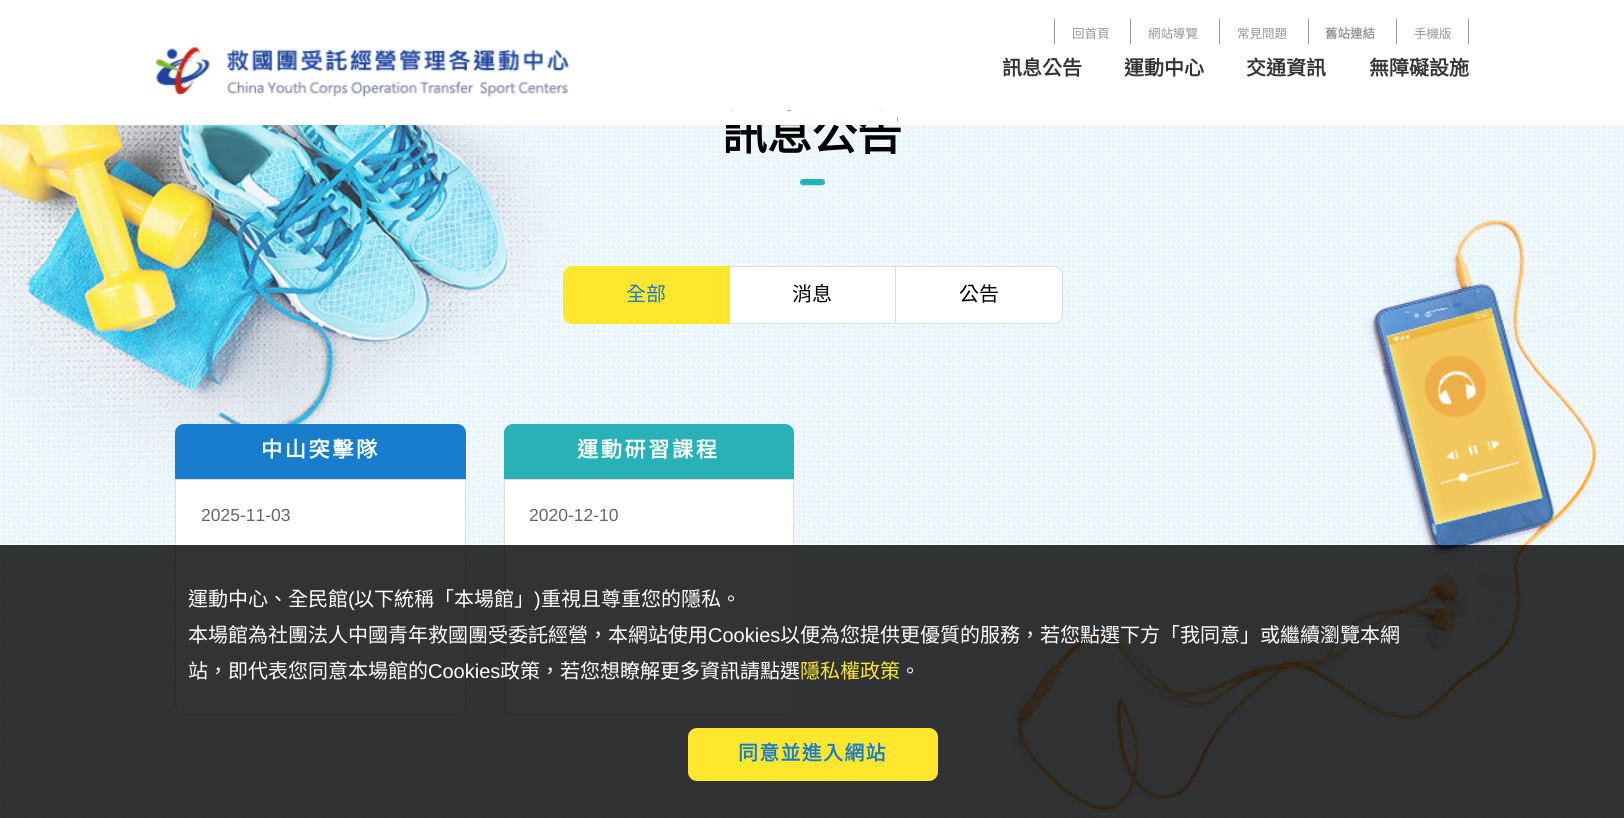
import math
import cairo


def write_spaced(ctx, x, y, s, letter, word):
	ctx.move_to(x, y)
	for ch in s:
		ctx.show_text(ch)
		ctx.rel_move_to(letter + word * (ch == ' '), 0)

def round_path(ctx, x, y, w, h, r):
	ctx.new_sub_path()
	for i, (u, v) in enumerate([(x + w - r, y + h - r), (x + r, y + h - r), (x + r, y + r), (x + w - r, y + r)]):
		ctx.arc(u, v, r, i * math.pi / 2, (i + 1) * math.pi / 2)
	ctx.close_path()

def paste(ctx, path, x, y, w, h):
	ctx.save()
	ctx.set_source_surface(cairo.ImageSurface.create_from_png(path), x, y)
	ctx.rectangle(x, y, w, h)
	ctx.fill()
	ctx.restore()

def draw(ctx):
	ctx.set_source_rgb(1, 1, 1)
	ctx.paint()
	paste(ctx, 'media/2.png', 0, 125, 1624, 693)
	ctx.select_font_face('Noto Sans CJK TC', cairo.FONT_SLANT_NORMAL, cairo.FONT_WEIGHT_BOLD)
	ctx.set_font_size(45)
	ctx.set_source_rgb(0, 0, 0)
	ctx.move_to(722, 150)
	ctx.show_text('訊息公告')
	ctx.set_source_rgb(1, 1, 1)
	ctx.rectangle(724, 111, 173, 14)
	ctx.fill()
	paste(ctx, 'media/1.png', 156, 47, 413, 51)
	ctx.set_source_rgb(0.592, 0.592, 0.592)
	ctx.rectangle(1054, 19, 1, 25)
	ctx.fill()
	ctx.select_font_face('Noto Sans CJK TC')
	ctx.set_font_size(12.5)
	ctx.move_to(1072, 38)
	ctx.show_text('回首頁')
	ctx.rectangle(1130, 19, 1, 25)
	ctx.fill()
	ctx.move_to(1148, 38)
	ctx.show_text('網站導覽')
	ctx.rectangle(1219, 19, 1, 25)
	ctx.fill()
	ctx.move_to(1237, 38)
	ctx.show_text('常見問題')
	ctx.rectangle(1308, 19, 1, 25)
	ctx.fill()
	ctx.select_font_face('Noto Sans CJK TC', cairo.FONT_SLANT_NORMAL, cairo.FONT_WEIGHT_BOLD)
	ctx.move_to(1325, 38)
	ctx.show_text('舊站連結')
	ctx.rectangle(1468, 19, 1, 25)
	ctx.fill()
	ctx.rectangle(1396, 19, 1, 25)
	ctx.fill()
	ctx.select_font_face('Noto Sans CJK TC')
	ctx.move_to(1414, 38)
	ctx.show_text('手機版')
	ctx.select_font_face('Noto Sans CJK TC', cairo.FONT_SLANT_NORMAL, cairo.FONT_WEIGHT_BOLD)
	ctx.set_font_size(20)
	ctx.set_source_rgb(0.2, 0.2, 0.2)
	for x, y, s in [
		(1002, 75, '訊息公告'),
		(1124, 75, '運動中心'),
		(1246, 75, '交通資訊'),
		(1369, 75, '無障礙設施'),
	]:
		ctx.move_to(x, y)
		ctx.show_text(s)
	paste(ctx, 'media/3.png', 800, 179, 25, 7)
	ctx.set_source_rgb(1, 1, 1)
	ctx.rectangle(729.5, 266.5, 166, 57)
	ctx.fill_preserve()
	ctx.set_source_rgb(0.867, 0.867, 0.867)
	ctx.set_line_width(1)
	ctx.stroke()
	paste(ctx, 'media/4.png', 0, 125, 579, 370)
	ctx.set_source_rgb(1, 0.906, 0.18)
	ctx.new_path()
	ctx.move_to(572, 266.5)
	ctx.line_to(729.5, 266.5)
	ctx.line_to(729.5, 323.5)
	ctx.line_to(572, 323.5)
	ctx.curve_to(567.5, 323.5, 563.5, 319.5, 563.5, 315)
	ctx.line_to(563.5, 275)
	ctx.curve_to(563.5, 270.5, 567.5, 266.5, 572, 266.5)
	ctx.close_path()
	ctx.fill_preserve()
	ctx.stroke()
	ctx.select_font_face('Noto Sans CJK TC')
	ctx.set_source_rgb(0.098, 0.49, 0.808)
	ctx.move_to(626, 301)
	ctx.show_text('全部')
	ctx.set_source_rgb(0, 0, 0)
	ctx.move_to(792, 301)
	ctx.show_text('消息')
	paste(ctx, 'media/5.png', 1011, 219, 587, 599)
	ctx.set_source_rgb(1, 1, 1)
	ctx.new_path()
	ctx.move_to(895.5, 266.5)
	ctx.line_to(1054, 266.5)
	ctx.curve_to(1058.5, 266.5, 1062.5, 270.5, 1062.5, 275)
	ctx.line_to(1062.5, 315)
	ctx.curve_to(1062.5, 319.5, 1058.5, 323.5, 1054, 323.5)
	ctx.line_to(895.5, 323.5)
	ctx.close_path()
	ctx.fill_preserve()
	ctx.set_source_rgb(0.867, 0.867, 0.867)
	ctx.stroke()
	ctx.set_source_rgb(0, 0, 0)
	ctx.move_to(959, 301)
	ctx.show_text('公告')
	ctx.set_source_rgb(0.098, 0.49, 0.808)
	ctx.new_path()
	ctx.move_to(184, 424)
	ctx.line_to(457, 424)
	ctx.curve_to(462, 424, 466, 428, 466, 433)
	ctx.line_to(466, 479)
	ctx.line_to(175, 479)
	ctx.line_to(175, 433)
	ctx.curve_to(175, 428, 179, 424, 184, 424)
	ctx.close_path()
	ctx.fill()
	ctx.select_font_face('Noto Sans CJK TC', cairo.FONT_SLANT_NORMAL, cairo.FONT_WEIGHT_BOLD)
	ctx.set_font_size(21.25)
	ctx.set_source_rgb(1, 1, 1)
	write_spaced(ctx, 261, 457, '中山突擊隊', 2.5, 0)
	ctx.new_path()
	ctx.move_to(175.5, 479.5)
	ctx.line_to(465.5, 479.5)
	ctx.line_to(465.5, 706)
	ctx.curve_to(465.5, 710.5, 461.5, 714.5, 457, 714.5)
	ctx.line_to(184, 714.5)
	ctx.curve_to(179.5, 714.5, 175.5, 710.5, 175.5, 706)
	ctx.close_path()
	ctx.fill_preserve()
	ctx.set_source_rgb(0.867, 0.867, 0.867)
	ctx.stroke()
	ctx.select_font_face('Liberation Sans')
	ctx.set_font_size(17.5)
	ctx.set_source_rgb(0.4, 0.4, 0.4)
	ctx.move_to(201, 521)
	ctx.show_text('2025-11-03')
	ctx.set_source_rgb(0.157, 0.694, 0.714)
	ctx.new_path()
	ctx.move_to(513, 424)
	ctx.line_to(785, 424)
	ctx.curve_to(790, 424, 794, 428, 794, 433)
	ctx.line_to(794, 479)
	ctx.line_to(504, 479)
	ctx.line_to(504, 433)
	ctx.curve_to(504, 428, 508, 424, 513, 424)
	ctx.close_path()
	ctx.fill()
	ctx.select_font_face('Noto Sans CJK TC', cairo.FONT_SLANT_NORMAL, cairo.FONT_WEIGHT_BOLD)
	ctx.set_font_size(21.25)
	ctx.set_source_rgb(1, 1, 1)
	write_spaced(ctx, 577, 457, '運動研習課程', 2.5, 0)
	ctx.new_path()
	ctx.move_to(504.5, 479.5)
	ctx.line_to(793.5, 479.5)
	ctx.line_to(793.5, 706)
	ctx.curve_to(793.5, 710.5, 789.5, 714.5, 785, 714.5)
	ctx.line_to(513, 714.5)
	ctx.curve_to(508.5, 714.5, 504.5, 710.5, 504.5, 706)
	ctx.close_path()
	ctx.fill_preserve()
	ctx.set_source_rgb(0.867, 0.867, 0.867)
	ctx.stroke()
	ctx.select_font_face('Liberation Sans')
	ctx.set_font_size(17.5)
	ctx.set_source_rgb(0.4, 0.4, 0.4)
	ctx.move_to(529, 521)
	ctx.show_text('2020-12-10')
	ctx.set_source_rgba(0, 0, 0, 0.8)
	ctx.rectangle(0, 545, 1624, 273)
	ctx.fill()
	ctx.select_font_face('Noto Sans CJK TC')
	ctx.set_font_size(20)
	ctx.set_source_rgb(1, 1, 1)
	ctx.move_to(188, 606)
	ctx.show_text('運動中心、全民館')
	ctx.select_font_face('Liberation Sans')
	ctx.move_to(348, 606)
	ctx.show_text('(')
	ctx.select_font_face('Noto Sans CJK TC')
	ctx.move_to(354, 606)
	ctx.show_text('以下統稱「本場館」')
	ctx.select_font_face('Liberation Sans')
	ctx.move_to(534, 606)
	ctx.show_text(')')
	ctx.select_font_face('Noto Sans CJK TC')
	ctx.move_to(541, 606)
	ctx.show_text('重視且尊重您的隱私。')
	ctx.move_to(188, 642)
	ctx.show_text('本場館為社團法人中國青年救國團受委託經營，本網站使用')
	ctx.select_font_face('Liberation Sans')
	ctx.move_to(708, 642)
	ctx.show_text('Cookies')
	ctx.select_font_face('Noto Sans CJK TC')
	ctx.move_to(780, 642)
	ctx.show_text('以便為您提供更優質的服務，若您點選下方「我同意」或繼續瀏覽本網')
	ctx.move_to(188, 678)
	ctx.show_text('站，即代表您同意本場館的')
	ctx.select_font_face('Liberation Sans')
	ctx.move_to(428, 678)
	ctx.show_text('Cookies')
	ctx.select_font_face('Noto Sans CJK TC')
	ctx.move_to(500, 678)
	ctx.show_text('政策，若您想瞭解更多資訊請點選')
	ctx.set_source_rgb(1, 0.906, 0.18)
	ctx.move_to(800, 678)
	ctx.show_text('隱私權政策')
	ctx.set_source_rgb(1, 1, 1)
	ctx.move_to(900, 678)
	ctx.show_text('。')
	ctx.set_source_rgb(1, 0.906, 0.18)
	round_path(ctx, 688, 728, 250, 53, 9)
	ctx.fill()
	ctx.select_font_face('Noto Sans CJK TC', cairo.FONT_SLANT_NORMAL, cairo.FONT_WEIGHT_BOLD)
	ctx.set_source_rgb(0.098, 0.49, 0.808)
	write_spaced(ctx, 738, 760, '同意並進入網站', 1.25, 0)


surface = cairo.ImageSurface(cairo.FORMAT_RGB24, 1624, 818)
ctx = cairo.Context(surface)
options = cairo.FontOptions()
options.set_hint_metrics(cairo.HINT_METRICS_OFF)
options.set_hint_style(cairo.HINT_STYLE_NONE)
ctx.set_font_options(options)
ctx.set_miter_limit(4)
draw(ctx)
surface.write_to_png('image.png')
